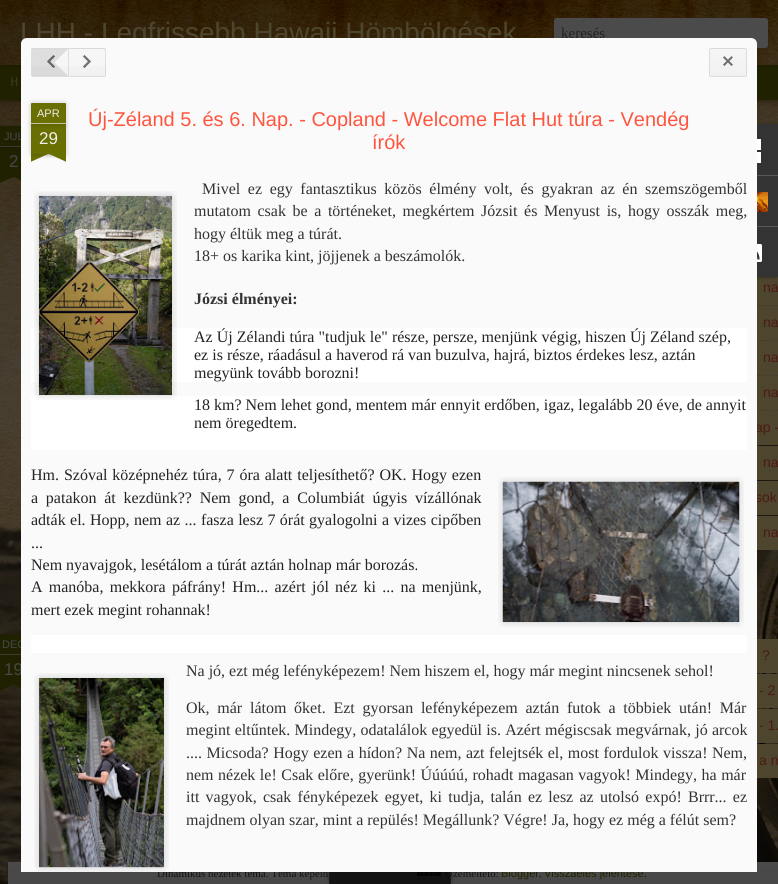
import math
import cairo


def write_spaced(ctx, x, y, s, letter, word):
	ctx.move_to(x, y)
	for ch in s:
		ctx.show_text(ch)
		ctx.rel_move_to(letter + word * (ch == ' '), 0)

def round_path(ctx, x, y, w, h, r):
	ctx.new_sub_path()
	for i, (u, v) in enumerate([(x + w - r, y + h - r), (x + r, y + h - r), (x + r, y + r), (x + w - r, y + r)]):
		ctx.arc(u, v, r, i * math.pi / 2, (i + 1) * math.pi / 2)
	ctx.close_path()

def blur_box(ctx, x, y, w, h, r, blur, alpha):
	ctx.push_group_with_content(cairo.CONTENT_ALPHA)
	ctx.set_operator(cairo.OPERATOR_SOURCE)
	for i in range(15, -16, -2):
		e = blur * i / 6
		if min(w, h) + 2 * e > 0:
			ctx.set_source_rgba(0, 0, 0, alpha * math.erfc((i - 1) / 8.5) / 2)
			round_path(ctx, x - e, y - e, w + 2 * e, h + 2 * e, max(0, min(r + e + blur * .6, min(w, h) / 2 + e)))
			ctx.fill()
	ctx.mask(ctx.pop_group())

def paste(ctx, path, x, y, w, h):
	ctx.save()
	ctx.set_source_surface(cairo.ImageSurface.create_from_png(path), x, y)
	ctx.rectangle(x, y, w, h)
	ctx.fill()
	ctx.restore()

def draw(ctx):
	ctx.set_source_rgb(1, 1, 1)
	ctx.paint()
	paste(ctx, 'media/1.png', 0, 100, 778, 784)
	ctx.set_source_rgb(0, 0, 0)
	blur_box(ctx, 0, 65, 778, 35, 0, 4, 0.5)
	ctx.set_source_rgb(0.125, 0.129, 0)
	ctx.rectangle(0, 65, 778, 35)
	ctx.fill()
	ctx.set_source_rgb(0, 0, 0)
	blur_box(ctx, 0, 0, 778, 65, 0, 2.5, 0.3)
	paste(ctx, 'media/2.png', 0, 0, 778, 65)
	ctx.select_font_face('Liberation Sans')
	ctx.set_font_size(28)
	ctx.set_source_rgb(0.302, 0.271, 0.18)
	ctx.move_to(20, 42)
	ctx.show_text('LHH - Legfrissebb Hawaii Hömbölgések')
	ctx.set_source_rgb(0.294, 0.294, 0.294)
	round_path(ctx, 554, 18, 214, 30, 3)
	ctx.fill()
	ctx.select_font_face('Liberation Serif')
	ctx.set_font_size(15)
	ctx.set_source_rgb(0.137, 0.137, 0.137)
	ctx.move_to(561, 38)
	ctx.show_text('keresés')
	ctx.select_font_face('Liberation Mono')
	ctx.set_font_size(14)
	ctx.set_source_rgb(0.231, 0.216, 0.11)
	ctx.move_to(10, 86)
	ctx.show_text('H')
	ctx.set_source_rgb(0.302, 0.271, 0.18)
	ctx.rectangle(757, 277, 21, 28)
	ctx.fill()
	ctx.set_source_rgb(0, 0, 0)
	blur_box(ctx, 728, 125, 50, 153, 2, 1.5, 0.3)
	blur_box(ctx, -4, 147, 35, 30, 0, 2.5, 0.2)
	ctx.set_source_rgb(0.125, 0.129, 0)
	ctx.rectangle(0, 147, 21, 30)
	ctx.fill()
	ctx.set_source_rgb(0, 0, 0)
	blur_box(ctx, -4, 126, 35, 21, 1, 2.5, 0.2)
	ctx.set_source_rgb(0.125, 0.129, 0)
	ctx.rectangle(0, 126, 21, 20)
	ctx.fill()
	ctx.select_font_face('Liberation Sans')
	ctx.set_font_size(11)
	ctx.set_source_rgb(0.278, 0.278, 0.278)
	ctx.move_to(4, 140)
	ctx.show_text('JUL')
	ctx.save()
	ctx.rectangle(0, 177, 31, 10)
	ctx.clip()
	ctx.set_source_rgb(0.125, 0.129, 0)
	ctx.new_path()
	ctx.move_to(-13, 178)
	ctx.line_to(33, 157)
	ctx.line_to(37, 166)
	ctx.line_to(-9, 187)
	ctx.close_path()
	ctx.move_to(-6, 157)
	ctx.line_to(40, 178)
	ctx.line_to(36, 187)
	ctx.line_to(-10, 166)
	ctx.close_path()
	ctx.fill()
	ctx.restore()
	ctx.set_source_rgb(0.302, 0.271, 0.18)
	ctx.rectangle(757, 411, 21, 34)
	ctx.fill()
	ctx.set_font_size(14)
	ctx.set_source_rgb(0.302, 0.102, 0.075)
	ctx.move_to(755, 432)
	ctx.show_text('ap -')
	ctx.set_source_rgb(0.302, 0.271, 0.18)
	ctx.rectangle(757, 481, 21, 34)
	ctx.fill()
	ctx.set_source_rgb(0.302, 0.102, 0.075)
	ctx.move_to(755, 502)
	ctx.show_text('sok')
	ctx.set_source_rgb(0, 0, 0)
	blur_box(ctx, -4, 655, 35, 30, 0, 2.5, 0.2)
	ctx.set_source_rgb(0.125, 0.129, 0)
	ctx.rectangle(0, 634, 21, 20)
	ctx.fill()
	ctx.set_font_size(11)
	ctx.set_source_rgb(0.278, 0.278, 0.278)
	ctx.move_to(2, 648)
	ctx.show_text('DEC')
	ctx.set_source_rgb(0.125, 0.129, 0)
	ctx.rectangle(0, 655, 21, 30)
	ctx.fill()
	ctx.set_font_size(17)
	ctx.set_source_rgb(0.278, 0.278, 0.278)
	ctx.move_to(4, 675)
	ctx.show_text('19')
	ctx.save()
	ctx.rectangle(0, 685, 31, 10)
	ctx.clip()
	ctx.set_source_rgb(0.125, 0.129, 0)
	ctx.new_path()
	ctx.move_to(-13, 686)
	ctx.line_to(33, 665)
	ctx.line_to(37, 674)
	ctx.line_to(-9, 695)
	ctx.close_path()
	ctx.move_to(-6, 665)
	ctx.line_to(40, 686)
	ctx.line_to(36, 695)
	ctx.line_to(-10, 674)
	ctx.close_path()
	ctx.fill()
	ctx.restore()
	gradient = cairo.LinearGradient(402, 862, 402, 884)
	gradient.add_color_stop_rgba(0, 0.29, 0.29, 0.29, 1)
	gradient.add_color_stop_rgba(1, 0.282, 0.282, 0.282, 1)
	ctx.set_source(gradient)
	ctx.rectangle(8, 862, 770, 22)
	ctx.fill()
	ctx.save()
	ctx.set_fill_rule(cairo.FILL_RULE_EVEN_ODD)
	ctx.new_path()
	ctx.move_to(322, 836)
	ctx.line_to(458, 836)
	ctx.line_to(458, 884)
	ctx.line_to(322, 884)
	ctx.close_path()
	ctx.move_to(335, 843)
	ctx.line_to(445, 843)
	ctx.curve_to(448.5, 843, 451, 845.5, 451, 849)
	ctx.line_to(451, 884)
	ctx.line_to(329, 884)
	ctx.line_to(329, 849)
	ctx.curve_to(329, 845.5, 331.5, 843, 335, 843)
	ctx.close_path()
	ctx.clip()
	ctx.set_source_rgb(0.059, 0.059, 0.059)
	blur_box(ctx, 329, 843, 122, 41, 6, 2, 0.75)
	ctx.restore()
	ctx.select_font_face('Liberation Serif')
	ctx.set_font_size(11)
	ctx.set_source_rgb(0.078, 0.078, 0.078)
	ctx.move_to(445, 877)
	ctx.show_text('Üzemeltető:')
	ctx.set_source_rgba(0, 0, 0, 0.75)
	ctx.rectangle(329, 872, 122, 12)
	ctx.fill()
	ctx.set_source_rgba(0.122, 0.122, 0.122, 0.75)
	ctx.set_fill_rule(cairo.FILL_RULE_EVEN_ODD)
	ctx.new_path()
	ctx.move_to(335, 843)
	ctx.line_to(445, 843)
	ctx.curve_to(448, 843, 451, 846, 451, 849)
	ctx.line_to(451, 884)
	ctx.line_to(329, 884)
	ctx.line_to(329, 849)
	ctx.curve_to(329, 846, 332, 843, 335, 843)
	ctx.close_path()
	ctx.move_to(335, 844)
	ctx.line_to(445, 844)
	ctx.curve_to(448, 844, 450, 846, 450, 849)
	ctx.line_to(450, 884)
	ctx.line_to(330, 884)
	ctx.line_to(330, 849)
	ctx.curve_to(330, 846, 332, 844, 335, 844)
	ctx.close_path()
	ctx.fill()
	ctx.set_source_rgb(0.078, 0.078, 0.078)
	ctx.move_to(157, 877)
	ctx.show_text('Dinamikus nézetek téma. Téma képein')
	ctx.select_font_face('Liberation Sans')
	ctx.set_source_rgb(0.125, 0.129, 0)
	ctx.move_to(501, 877)
	ctx.show_text('Blogger')
	ctx.move_to(544, 877)
	ctx.show_text('Visszaélés jelentése')
	ctx.set_source_rgb(0.98, 0.98, 0.98)
	ctx.new_path()
	ctx.move_to(27, 38)
	ctx.line_to(751, 38)
	ctx.curve_to(754.5, 38, 757, 40.5, 757, 44)
	ctx.line_to(757, 872)
	ctx.line_to(21, 872)
	ctx.line_to(21, 44)
	ctx.curve_to(21, 40.5, 23.5, 38, 27, 38)
	ctx.close_path()
	ctx.fill()
	ctx.set_source_rgb(0.961, 0.961, 0.961)
	ctx.new_path()
	ctx.move_to(33, 48)
	ctx.line_to(69, 48)
	ctx.line_to(69, 77)
	ctx.line_to(33, 77)
	ctx.curve_to(32, 77, 31, 76, 31, 75)
	ctx.line_to(31, 50)
	ctx.curve_to(31, 49, 32, 48, 33, 48)
	ctx.close_path()
	ctx.fill()
	gradient = cairo.LinearGradient(50, 22, 50, 49)
	gradient.add_color_stop_rgba(0, 0.961, 0.961, 0.961, 1)
	gradient.add_color_stop_rgba(1, 0.945, 0.945, 0.945, 1)
	ctx.set_source(gradient)
	ctx.rectangle(31, 48, 38, 1)
	ctx.fill()
	gradient = cairo.LinearGradient(50, 49, 50, 76)
	gradient.add_color_stop_rgba(0, 0.961, 0.961, 0.961, 1)
	gradient.add_color_stop_rgba(1, 0.945, 0.945, 0.945, 1)
	ctx.set_source(gradient)
	ctx.rectangle(31, 66, 37, 10)
	ctx.fill()
	ctx.set_source_rgba(0, 0, 0, 0.1)
	ctx.set_fill_rule(cairo.FILL_RULE_WINDING)
	ctx.new_path()
	ctx.move_to(33, 48)
	ctx.line_to(69, 48)
	ctx.line_to(54.5, 62.5)
	ctx.line_to(45.5, 62.5)
	ctx.line_to(31.5, 48.5)
	ctx.close_path()
	ctx.fill()
	ctx.new_path()
	ctx.move_to(69, 77)
	ctx.line_to(33, 77)
	ctx.line_to(31.5, 76.5)
	ctx.line_to(45.5, 62.5)
	ctx.line_to(54.5, 62.5)
	ctx.close_path()
	ctx.fill()
	ctx.new_path()
	ctx.move_to(31.5, 76.5)
	ctx.line_to(45.5, 62.5)
	ctx.line_to(31.5, 48.5)
	ctx.line_to(31, 50)
	ctx.line_to(31, 75)
	ctx.close_path()
	ctx.fill()
	paste(ctx, 'media/3.png', 47, 55, 8, 13)
	ctx.set_source_rgb(0.961, 0.961, 0.961)
	ctx.new_path()
	ctx.move_to(68, 48)
	ctx.line_to(104, 48)
	ctx.curve_to(105, 48, 106, 49, 106, 50)
	ctx.line_to(106, 75)
	ctx.curve_to(106, 76, 105, 77, 104, 77)
	ctx.line_to(68, 77)
	ctx.close_path()
	ctx.fill()
	gradient = cairo.LinearGradient(87, 22, 87, 49)
	gradient.add_color_stop_rgba(0, 0.961, 0.961, 0.961, 1)
	gradient.add_color_stop_rgba(1, 0.945, 0.945, 0.945, 1)
	ctx.set_source(gradient)
	ctx.rectangle(68, 48, 38, 1)
	ctx.fill()
	gradient = cairo.LinearGradient(87, 49, 87, 76)
	gradient.add_color_stop_rgba(0, 0.961, 0.961, 0.961, 1)
	gradient.add_color_stop_rgba(1, 0.945, 0.945, 0.945, 1)
	ctx.set_source(gradient)
	ctx.rectangle(68, 66, 38, 10)
	ctx.fill()
	ctx.new_path()
	ctx.move_to(68.5, 48.5)
	ctx.line_to(104, 48.5)
	ctx.curve_to(105, 48.5, 105.5, 49, 105.5, 50)
	ctx.line_to(105.5, 75)
	ctx.curve_to(105.5, 76, 105, 76.5, 104, 76.5)
	ctx.line_to(68.5, 76.5)
	ctx.close_path()
	ctx.set_source_rgba(0, 0, 0, 0.1)
	ctx.set_line_width(1)
	ctx.stroke()
	paste(ctx, 'media/4.png', 83, 55, 8, 13)
	ctx.set_source_rgb(0.961, 0.961, 0.961)
	round_path(ctx, 709, 48, 38, 29, 2)
	ctx.fill()
	ctx.save()
	round_path(ctx, 709, 48, 38, 29, 2)
	ctx.clip()
	gradient = cairo.LinearGradient(728, 22, 728, 49)
	gradient.add_color_stop_rgba(0, 0.961, 0.961, 0.961, 1)
	gradient.add_color_stop_rgba(1, 0.945, 0.945, 0.945, 1)
	ctx.set_source(gradient)
	ctx.rectangle(709, 48, 38, 1)
	ctx.fill()
	gradient = cairo.LinearGradient(728, 49, 728, 76)
	gradient.add_color_stop_rgba(0, 0.961, 0.961, 0.961, 1)
	gradient.add_color_stop_rgba(1, 0.945, 0.945, 0.945, 1)
	ctx.set_source(gradient)
	ctx.rectangle(709, 49, 38, 27)
	ctx.fill()
	ctx.restore()
	round_path(ctx, 709.5, 48.5, 37, 28, 1.5)
	ctx.set_source_rgba(0, 0, 0, 0.1)
	ctx.stroke()
	paste(ctx, 'media/5.png', 723, 56, 10, 10)
	ctx.set_source_rgb(0, 0, 0)
	blur_box(ctx, 31, 124, 35, 30, 0, 2.5, 0.2)
	ctx.set_source_rgb(0.412, 0.435, 0)
	ctx.rectangle(31, 124, 35, 30)
	ctx.fill()
	ctx.set_source_rgb(0, 0, 0)
	blur_box(ctx, 31, 103, 35, 21, 1, 2.5, 0.2)
	ctx.set_source_rgb(0.412, 0.435, 0)
	ctx.new_path()
	ctx.move_to(32, 103)
	ctx.line_to(65, 103)
	ctx.curve_to(65.5, 103, 66, 103.5, 66, 104)
	ctx.line_to(66, 124)
	ctx.line_to(31, 124)
	ctx.line_to(31, 104)
	ctx.curve_to(31, 103.5, 31.5, 103, 32, 103)
	ctx.close_path()
	ctx.fill()
	ctx.set_source_rgb(0.765, 0.773, 0.6)
	ctx.rectangle(31, 123, 35, 1)
	ctx.fill()
	ctx.set_source_rgb(0.933, 0.933, 0.933)
	ctx.move_to(37, 117)
	ctx.show_text('APR')
	ctx.set_font_size(17)
	ctx.move_to(39, 144)
	ctx.show_text('29')
	ctx.set_source_rgb(0.231, 0.231, 0.18)
	ctx.rectangle(0, 146, 21, 1)
	ctx.fill()
	ctx.save()
	ctx.rectangle(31, 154, 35, 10)
	ctx.clip()
	ctx.set_source_rgb(0, 0, 0)
	blur_box(ctx, 22, 144, 50, 10, 0, 2.5, 0.2)
	ctx.restore()
	ctx.save()
	ctx.rectangle(31, 154, 35, 10)
	ctx.clip()
	ctx.set_source_rgb(0.412, 0.435, 0)
	ctx.new_path()
	ctx.move_to(22, 155)
	ctx.line_to(68, 134)
	ctx.line_to(72, 143)
	ctx.line_to(26, 164)
	ctx.close_path()
	ctx.fill()
	ctx.restore()
	ctx.save()
	ctx.rectangle(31, 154, 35, 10)
	ctx.clip()
	ctx.set_source_rgb(0, 0, 0)
	blur_box(ctx, 25, 144, 50, 10, 0, 2.5, 0.2)
	ctx.restore()
	ctx.save()
	ctx.rectangle(31, 154, 35, 10)
	ctx.clip()
	ctx.set_source_rgb(0.412, 0.435, 0)
	ctx.new_path()
	ctx.move_to(29, 134)
	ctx.line_to(75, 155)
	ctx.line_to(71, 164)
	ctx.line_to(25, 143)
	ctx.close_path()
	ctx.fill()
	ctx.restore()
	ctx.set_font_size(20)
	ctx.set_source_rgb(1, 0.333, 0.247)
	ctx.move_to(88, 126)
	ctx.show_text('Új-Zéland 5. és 6. Nap. - Copland - Welcome Flat Hut túra - Vendég')
	ctx.move_to(372, 149)
	ctx.show_text('írók')
	ctx.set_source_rgb(1, 1, 1)
	ctx.rectangle(31, 328, 716, 54)
	ctx.fill()
	ctx.rectangle(31, 396, 716, 54)
	ctx.fill()
	paste(ctx, 'media/6.png', 34, 191, 143, 209)
	paste(ctx, 'media/7.png', 38, 195, 134, 200)
	ctx.select_font_face('Liberation Serif')
	ctx.set_font_size(16)
	ctx.set_source_rgb(0.2, 0.2, 0.2)
	write_spaced(ctx, 202, 194, 'Mivel ez egy fantasztikus közös élmény volt, és gyakran az én szemszögemből', 0, 3.6)
	write_spaced(ctx, 194, 216, 'mutatom csak be a történeket, megkértem Józsit és Menyust is, hogy osszák meg,', 0, 2.6)
	ctx.move_to(194, 239)
	ctx.show_text('hogy éltük meg a túrát.')
	ctx.move_to(194, 261)
	ctx.show_text('18+ os karika kint, jöjjenek a beszámolók.')
	ctx.select_font_face('Liberation Serif', cairo.FONT_SLANT_NORMAL, cairo.FONT_WEIGHT_BOLD)
	ctx.move_to(194, 304)
	ctx.show_text('Józsi élményei:')
	ctx.select_font_face('Liberation Serif')
	ctx.set_source_rgb(0.137, 0.137, 0.137)
	for x, y, s in [
		(194, 342, 'Az Új Zélandi túra "tudjuk le" része, persze, menjünk végig, hiszen Új Zéland szép,'),
		(194, 360, 'ez is része, ráadásul a haverod rá van buzulva, hajrá, biztos érdekes lesz, aztán'),
		(194, 378, 'megyünk tovább borozni!'),
		(194, 410, '18 km? Nem lehet gond, mentem már ennyit erdőben, igaz, legalább 20 éve, de annyit'),
		(194, 428, 'nem öregedtem.'),
	]:
		ctx.move_to(x, y)
		ctx.show_text(s)
	write_spaced(ctx, 31, 480, 'Hm. Szóval középnehéz túra, 7 óra alatt teljesíthető? OK. Hogy ezen', 0, 0.9)
	paste(ctx, 'media/8.png', 498, 477, 246, 150)
	paste(ctx, 'media/9.png', 502, 481, 238, 142)
	write_spaced(ctx, 31, 503, 'a patakon át kezdünk?? Nem gond, a Columbiát úgyis vízállónak', 0, 3.75)
	write_spaced(ctx, 31, 525, 'adták el. Hopp, nem az ... fasza lesz 7 órát gyalogolni a vizes cipőben', 0, 0.4)
	ctx.move_to(31, 548)
	ctx.show_text('...')
	ctx.move_to(31, 570)
	ctx.show_text('Nem nyavajgok, lesétálom a túrát aztán holnap már borozás.')
	write_spaced(ctx, 31, 592, 'A manóba, mekkora páfrány! Hm... azért jól néz ki ... na menjünk,', 0, 2.25)
	ctx.move_to(31, 615)
	ctx.show_text('mert ezek megint rohannak!')
	ctx.set_source_rgb(1, 1, 1)
	ctx.rectangle(31, 635, 716, 18)
	ctx.fill()
	paste(ctx, 'media/10.png', 34, 673, 135, 199)
	paste(ctx, 'media/11.png', 39, 679, 125, 189)
	ctx.set_source_rgb(0.2, 0.2, 0.2)
	ctx.move_to(186, 676)
	ctx.show_text('Na jó, ezt még lefényképezem! Nem hiszem el, hogy már megint nincsenek sehol!')
	write_spaced(ctx, 186, 713, 'Ok, már látom őket. Ezt gyorsan lefényképezem aztán futok a többiek után! Már', 0, 3.75)
	write_spaced(ctx, 186, 735, 'megint eltűntek. Mindegy, odatalálok egyedül is. Azért mégiscsak megvárnak, jó arcok', 0, 0.25)
	write_spaced(ctx, 186, 758, '.... Micsoda? Hogy ezen a hídon? Na nem, azt felejtsék el, most fordulok vissza! Nem,', 0, 0.5)
	write_spaced(ctx, 186, 780, 'nem nézek le! Csak előre, gyerünk! Úúúúú, rohadt magasan vagyok! Mindegy, ha már', 0, 0.5)
	write_spaced(ctx, 186, 802, 'itt vagyok, csak fényképezek egyet, ki tudja, talán ez lesz az utolsó expó! Brrr... ez', 0, 2.25)
	ctx.move_to(186, 825)
	ctx.show_text('majdnem olyan szar, mint a repülés! Megállunk? Végre! Ja, hogy ez még a félút sem?')
	ctx.rectangle(757, 176, 21, 50)
	ctx.fill()
	ctx.rectangle(757, 124, 21, 51)
	ctx.fill()
	paste(ctx, 'media/12.png', 757, 139, 4, 24)
	ctx.set_source_rgb(0.345, 0.345, 0.345)
	ctx.rectangle(757, 175, 21, 1)
	ctx.fill()
	paste(ctx, 'media/13.png', 757, 192, 11, 20)
	ctx.set_source_rgb(0.2, 0.2, 0.2)
	ctx.rectangle(757, 227, 21, 50)
	ctx.fill()
	ctx.set_source_rgb(0.345, 0.345, 0.345)
	ctx.rectangle(757, 226, 21, 1)
	ctx.fill()
	paste(ctx, 'media/14.png', 757, 244, 5, 18)
	ctx.select_font_face('Liberation Sans')
	ctx.set_font_size(17)
	ctx.set_source_rgb(0.278, 0.278, 0.278)
	ctx.move_to(9, 167)
	ctx.show_text('2')
	ctx.set_font_size(14)
	ctx.set_source_rgb(0.302, 0.102, 0.075)
	ctx.move_to(763, 292)
	ctx.show_text('na')
	ctx.set_source_rgb(0.302, 0.271, 0.18)
	ctx.rectangle(757, 306, 21, 34)
	ctx.fill()
	ctx.set_source_rgb(0.302, 0.102, 0.075)
	ctx.move_to(763, 327)
	ctx.show_text('na')
	ctx.set_source_rgb(0.302, 0.271, 0.18)
	ctx.rectangle(757, 341, 21, 34)
	ctx.fill()
	ctx.set_source_rgb(0.302, 0.102, 0.075)
	ctx.move_to(763, 362)
	ctx.show_text('na')
	ctx.set_source_rgb(0.302, 0.271, 0.18)
	ctx.rectangle(757, 376, 21, 34)
	ctx.fill()
	ctx.set_source_rgb(0.302, 0.102, 0.075)
	ctx.move_to(763, 397)
	ctx.show_text('na')
	ctx.set_source_rgb(0.302, 0.271, 0.18)
	ctx.rectangle(757, 446, 21, 34)
	ctx.fill()
	ctx.set_source_rgb(0.302, 0.102, 0.075)
	ctx.move_to(763, 467)
	ctx.show_text('na')
	ctx.set_source_rgb(0.302, 0.271, 0.18)
	ctx.rectangle(757, 516, 21, 34)
	ctx.fill()
	ctx.set_source_rgb(0.302, 0.102, 0.075)
	ctx.move_to(763, 537)
	ctx.show_text('na')
	ctx.set_source_rgb(0.231, 0.231, 0.18)
	ctx.rectangle(0, 654, 21, 1)
	ctx.fill()
	ctx.set_source_rgb(0.302, 0.271, 0.18)
	ctx.rectangle(757, 639, 21, 34)
	ctx.fill()
	ctx.set_source_rgb(0.302, 0.102, 0.075)
	ctx.move_to(762, 660)
	ctx.show_text('?')
	ctx.set_source_rgb(0.302, 0.271, 0.18)
	ctx.rectangle(757, 674, 21, 34)
	ctx.fill()
	ctx.set_source_rgb(0.302, 0.102, 0.075)
	ctx.move_to(759, 695)
	ctx.show_text('- 2')
	ctx.set_source_rgb(0.302, 0.271, 0.18)
	ctx.rectangle(757, 709, 21, 34)
	ctx.fill()
	ctx.set_source_rgb(0.302, 0.102, 0.075)
	ctx.move_to(759, 730)
	ctx.show_text('- 1.')
	ctx.set_source_rgb(0.302, 0.271, 0.18)
	ctx.rectangle(757, 744, 21, 34)
	ctx.fill()
	ctx.set_source_rgb(0.302, 0.102, 0.075)
	ctx.move_to(759, 765)
	ctx.show_text('a n')
	paste(ctx, 'media/15.png', 417, 872, 24, 4)
	ctx.select_font_face('Liberation Serif')
	ctx.set_font_size(11)
	ctx.set_source_rgb(0.078, 0.078, 0.078)
	ctx.move_to(539, 877)
	ctx.show_text('.')
	ctx.move_to(644, 877)
	ctx.show_text('.')


surface = cairo.ImageSurface(cairo.FORMAT_RGB24, 778, 884)
ctx = cairo.Context(surface)
options = cairo.FontOptions()
options.set_hint_metrics(cairo.HINT_METRICS_OFF)
options.set_hint_style(cairo.HINT_STYLE_NONE)
ctx.set_font_options(options)
ctx.set_miter_limit(4)
draw(ctx)
surface.write_to_png('image.png')
